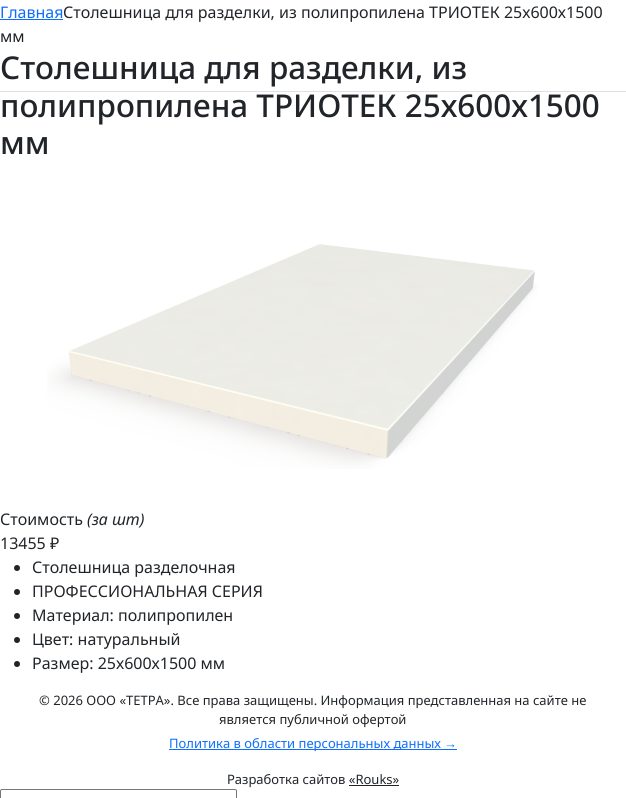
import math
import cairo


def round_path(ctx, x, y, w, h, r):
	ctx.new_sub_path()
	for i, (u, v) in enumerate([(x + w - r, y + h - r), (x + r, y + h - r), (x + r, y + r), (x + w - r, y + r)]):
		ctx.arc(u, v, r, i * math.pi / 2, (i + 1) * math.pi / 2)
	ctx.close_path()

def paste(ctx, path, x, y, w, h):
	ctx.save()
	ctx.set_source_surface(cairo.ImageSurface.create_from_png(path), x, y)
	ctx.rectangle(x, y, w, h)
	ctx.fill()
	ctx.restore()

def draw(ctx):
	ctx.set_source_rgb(1, 1, 1)
	ctx.paint()
	ctx.select_font_face('Noto Sans')
	ctx.set_font_size(16)
	ctx.set_source_rgb(0.051, 0.431, 0.992)
	ctx.move_to(0, 18)
	ctx.show_text('Главная')
	ctx.rectangle(0, 19, 63, 1)
	ctx.fill()
	ctx.set_source_rgb(0.129, 0.145, 0.161)
	ctx.move_to(63, 18)
	ctx.show_text('Столешница для разделки, из полипропилена ТРИОТЕК 25х600х1500')
	ctx.move_to(0, 42)
	ctx.show_text('мм')
	ctx.select_font_face('Noto Sans Medium')
	ctx.set_font_size(31.4)
	for x, y, s in [
		(0, 79, 'Столешница для разделки, из'),
		(0, 117, 'полипропилена ТРИОТЕК 25х600х1500'),
		(0, 154, 'мм'),
	]:
		ctx.move_to(x, y)
		ctx.show_text(s)
	paste(ctx, 'media/1.png', 47, 244, 491, 225)
	ctx.select_font_face('Noto Sans')
	ctx.set_font_size(16)
	ctx.move_to(0, 525)
	ctx.show_text('Стоимость')
	ctx.select_font_face('Noto Sans', cairo.FONT_SLANT_ITALIC)
	ctx.move_to(87, 525)
	ctx.show_text('(за шт)')
	ctx.select_font_face('Noto Sans')
	ctx.move_to(0, 549)
	ctx.show_text('13455 ₽')
	ctx.new_path()
	ctx.arc(17, 568, 3, 0, 2 * math.pi)
	ctx.fill()
	ctx.move_to(32, 573)
	ctx.show_text('Столешница разделочная')
	ctx.new_path()
	ctx.arc(17, 592, 3, 0, 2 * math.pi)
	ctx.fill()
	ctx.move_to(32, 597)
	ctx.show_text('ПРОФЕССИОНАЛЬНАЯ СЕРИЯ')
	ctx.new_path()
	ctx.arc(17, 616, 3, 0, 2 * math.pi)
	ctx.fill()
	ctx.move_to(32, 621)
	ctx.show_text('Материал: полипропилен')
	ctx.new_path()
	ctx.arc(17, 640, 3, 0, 2 * math.pi)
	ctx.fill()
	ctx.move_to(32, 645)
	ctx.show_text('Цвет: натуральный')
	ctx.new_path()
	ctx.arc(17, 664, 3, 0, 2 * math.pi)
	ctx.fill()
	ctx.move_to(32, 669)
	ctx.show_text('Размер: 25х600х1500 мм')
	ctx.set_source_rgb(0.871, 0.886, 0.902)
	ctx.rectangle(0, 91, 626, 1)
	ctx.fill()
	ctx.set_font_size(13)
	ctx.set_source_rgb(0.129, 0.145, 0.161)
	ctx.move_to(39, 705)
	ctx.show_text('© 2026 ООО «ТЕТРА». Все права защищены. Информация представленная на сайте не')
	ctx.move_to(219, 724)
	ctx.show_text('является публичной офертой')
	ctx.set_source_rgb(0.051, 0.431, 0.992)
	ctx.rectangle(169, 749, 288, 1)
	ctx.fill()
	ctx.move_to(169, 748)
	ctx.show_text('Политика в области персональных данных')
	ctx.select_font_face('Liberation Sans')
	ctx.move_to(444, 748)
	ctx.show_text('→')
	ctx.select_font_face('Noto Sans')
	ctx.set_source_rgb(0.129, 0.145, 0.161)
	ctx.move_to(227, 784)
	ctx.show_text('Разработка сайтов «Rouks»')
	ctx.rectangle(349, 785, 50, 1)
	ctx.fill()
	round_path(ctx, 0.5, 789.5, 236, 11, 1.5)
	ctx.set_source_rgb(0.463, 0.463, 0.463)
	ctx.set_line_width(1)
	ctx.stroke()


surface = cairo.ImageSurface(cairo.FORMAT_RGB24, 626, 798)
ctx = cairo.Context(surface)
options = cairo.FontOptions()
options.set_hint_metrics(cairo.HINT_METRICS_OFF)
options.set_hint_style(cairo.HINT_STYLE_NONE)
ctx.set_font_options(options)
ctx.set_miter_limit(4)
draw(ctx)
surface.write_to_png('image.png')
